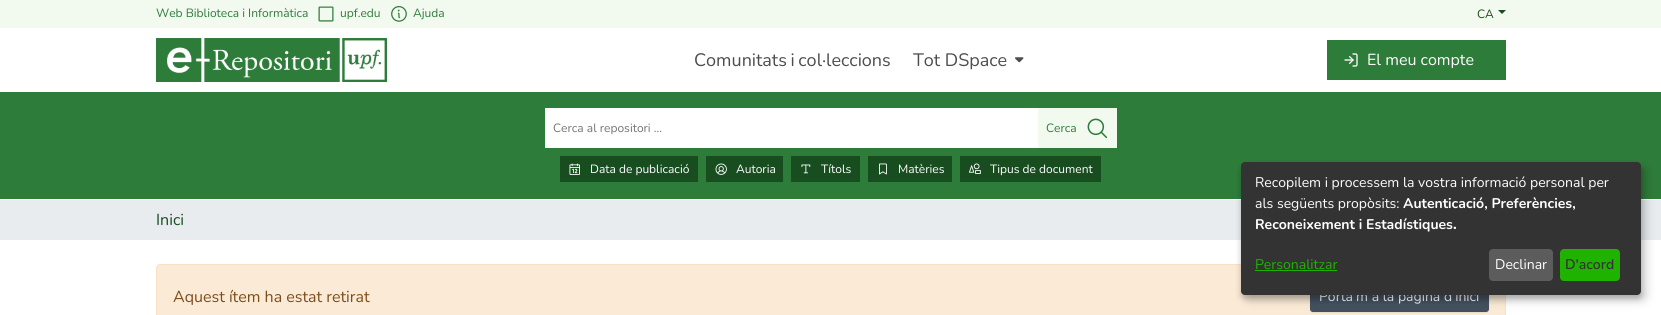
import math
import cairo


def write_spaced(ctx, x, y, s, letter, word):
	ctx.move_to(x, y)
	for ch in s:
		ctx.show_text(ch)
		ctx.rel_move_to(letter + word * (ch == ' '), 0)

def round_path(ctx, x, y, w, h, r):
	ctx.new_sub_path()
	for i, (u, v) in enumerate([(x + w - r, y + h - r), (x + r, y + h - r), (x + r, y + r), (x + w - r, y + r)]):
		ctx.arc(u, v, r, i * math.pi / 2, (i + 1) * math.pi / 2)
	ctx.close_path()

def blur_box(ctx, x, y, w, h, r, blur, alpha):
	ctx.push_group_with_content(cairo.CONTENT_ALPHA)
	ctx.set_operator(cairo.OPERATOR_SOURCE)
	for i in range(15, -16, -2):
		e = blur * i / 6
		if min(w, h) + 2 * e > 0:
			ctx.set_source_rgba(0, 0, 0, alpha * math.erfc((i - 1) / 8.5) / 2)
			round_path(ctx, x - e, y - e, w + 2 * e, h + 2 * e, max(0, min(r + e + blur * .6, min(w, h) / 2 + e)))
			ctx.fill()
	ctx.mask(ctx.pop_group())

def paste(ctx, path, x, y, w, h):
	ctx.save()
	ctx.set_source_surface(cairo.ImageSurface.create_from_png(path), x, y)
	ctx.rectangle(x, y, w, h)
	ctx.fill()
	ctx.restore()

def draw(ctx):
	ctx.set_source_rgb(1, 1, 1)
	ctx.paint()
	ctx.set_source_rgb(0.949, 0.976, 0.937)
	ctx.rectangle(0, 0, 1661, 28)
	ctx.fill()
	ctx.select_font_face('Nunito')
	ctx.set_font_size(12)
	ctx.set_source_rgb(0.18, 0.486, 0.227)
	ctx.move_to(156, 17)
	ctx.show_text('Web Biblioteca i Informàtica')
	paste(ctx, 'media/1.png', 318, 6, 16, 16)
	ctx.move_to(340, 17)
	ctx.show_text('upf.edu')
	paste(ctx, 'media/2.png', 391, 6, 16, 16)
	ctx.move_to(413, 17)
	ctx.show_text('Ajuda')
	ctx.set_source_rgb(0.09, 0.302, 0.122)
	ctx.move_to(1477, 18)
	ctx.show_text('CA')
	ctx.new_path()
	ctx.move_to(1498, 10)
	ctx.line_to(1506, 10)
	ctx.line_to(1502, 14)
	ctx.close_path()
	ctx.fill()
	paste(ctx, 'media/3.png', 156, 38, 231, 44)
	ctx.set_font_size(18)
	ctx.set_source_rgb(0.302, 0.302, 0.302)
	write_spaced(ctx, 694, 66, 'Comunitats i col·leccions', 0, -1)
	ctx.move_to(913, 66)
	ctx.show_text('Tot DSpace')
	paste(ctx, 'media/4.png', 1015, 57, 9, 6)
	ctx.set_source_rgb(0.18, 0.486, 0.227)
	ctx.rectangle(1327, 40, 179, 40)
	ctx.fill()
	paste(ctx, 'media/5.png', 1344, 53, 14, 14)
	ctx.set_font_size(16)
	ctx.set_source_rgb(1, 1, 1)
	ctx.move_to(1367, 65)
	ctx.show_text('El meu compte')
	ctx.set_source_rgb(0.18, 0.486, 0.227)
	ctx.rectangle(0, 92, 1661, 107)
	ctx.fill()
	ctx.set_source_rgb(1, 1, 1)
	ctx.rectangle(545, 108, 493, 40)
	ctx.fill()
	ctx.set_font_size(12)
	ctx.set_source_rgb(0.459, 0.459, 0.459)
	ctx.move_to(553, 132)
	ctx.show_text('Cerca al repositori ...')
	ctx.set_source_rgb(0.949, 0.976, 0.937)
	ctx.rectangle(1038, 108, 79, 40)
	ctx.fill()
	ctx.set_source_rgb(0.18, 0.486, 0.227)
	ctx.move_to(1046, 132)
	ctx.show_text('Cerca')
	paste(ctx, 'media/6.png', 1087, 118, 21, 21)
	ctx.set_source_rgb(0.09, 0.302, 0.122)
	ctx.rectangle(560, 156, 138, 26)
	ctx.fill()
	paste(ctx, 'media/7.png', 569, 163, 11, 12)
	ctx.set_source_rgb(1, 1, 1)
	ctx.move_to(590, 173)
	ctx.show_text('Data de publicació')
	ctx.set_source_rgb(0.09, 0.302, 0.122)
	ctx.rectangle(706, 156, 77, 26)
	ctx.fill()
	paste(ctx, 'media/8.png', 715, 163, 12, 12)
	ctx.set_source_rgb(1, 1, 1)
	ctx.move_to(736, 173)
	ctx.show_text('Autoria')
	ctx.set_source_rgb(0.09, 0.302, 0.122)
	ctx.rectangle(791, 156, 69, 26)
	ctx.fill()
	paste(ctx, 'media/9.png', 801, 164, 10, 10)
	ctx.set_source_rgb(1, 1, 1)
	ctx.move_to(821, 173)
	ctx.show_text('Títols')
	ctx.set_source_rgb(0.09, 0.302, 0.122)
	ctx.rectangle(868, 156, 84, 26)
	ctx.fill()
	paste(ctx, 'media/10.png', 879, 163, 8, 12)
	ctx.set_source_rgb(1, 1, 1)
	ctx.move_to(898, 173)
	ctx.show_text('Matèries')
	ctx.set_source_rgb(0.09, 0.302, 0.122)
	ctx.rectangle(960, 156, 141, 26)
	ctx.fill()
	paste(ctx, 'media/11.png', 969, 163, 12, 11)
	ctx.set_source_rgb(1, 1, 1)
	ctx.move_to(990, 173)
	ctx.show_text('Tipus de document')
	ctx.set_source_rgb(0.914, 0.925, 0.937)
	ctx.rectangle(0, 200, 1661, 40)
	ctx.fill()
	ctx.set_font_size(16)
	ctx.set_source_rgb(0.09, 0.302, 0.122)
	ctx.move_to(156, 225)
	ctx.show_text('Inici')
	ctx.set_source_rgb(0.984, 0.918, 0.839)
	round_path(ctx, 156.5, 264.5, 1349, 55, 3.5)
	ctx.fill_preserve()
	ctx.set_source_rgb(0.98, 0.882, 0.776)
	ctx.set_line_width(1)
	ctx.stroke()
	ctx.set_source_rgb(0.482, 0.302, 0.106)
	ctx.move_to(173, 302)
	ctx.show_text('Aquest ítem ha estat retirat')
	ctx.set_source_rgb(0, 0, 0)
	blur_box(ctx, 1310, 282, 179, 31, 3, 0.5, 0.07)
	ctx.set_source_rgb(0.263, 0.318, 0.373)
	round_path(ctx, 1310.5, 281.5, 178, 30, 2.5)
	ctx.fill_preserve()
	ctx.stroke()
	ctx.set_font_size(14)
	ctx.set_source_rgb(1, 1, 1)
	ctx.move_to(1319, 301)
	ctx.show_text('Porta\'m a la pàgina d\'inici')
	ctx.set_source_rgb(0, 0, 0)
	blur_box(ctx, 1246, 167, 400, 133, 4, 5, 0.19)
	blur_box(ctx, 1241, 166, 400, 133, 4, 3, 0.2)
	ctx.set_source_rgb(0.2, 0.2, 0.2)
	round_path(ctx, 1241, 162, 400, 133, 4)
	ctx.fill()
	ctx.set_source_rgb(1, 1, 1)
	ctx.move_to(1255, 187)
	ctx.show_text('Recopilem i processem la vostra informació personal per')
	ctx.move_to(1255, 208)
	ctx.show_text('als següents propòsits:')
	ctx.select_font_face('Nunito', cairo.FONT_SLANT_NORMAL, cairo.FONT_WEIGHT_BOLD)
	ctx.move_to(1403, 208)
	ctx.show_text('Autenticació, Preferències,')
	ctx.move_to(1255, 229)
	ctx.show_text('Reconeixement i Estadístiques')
	ctx.select_font_face('Nunito ExtraBold')
	ctx.move_to(1453, 229)
	ctx.show_text('.')
	ctx.select_font_face('Nunito')
	ctx.set_source_rgb(0.122, 0.702, 0)
	ctx.move_to(1255, 269)
	ctx.show_text('Personalitzar')
	ctx.rectangle(1255, 270, 82, 1)
	ctx.fill()
	ctx.set_source_rgb(0.361, 0.361, 0.361)
	round_path(ctx, 1489, 249, 64, 32, 4)
	ctx.fill()
	ctx.set_source_rgb(1, 1, 1)
	ctx.move_to(1495, 269)
	ctx.show_text('Declinar')
	ctx.set_source_rgb(0.122, 0.702, 0)
	round_path(ctx, 1560, 249, 60, 32, 4)
	ctx.fill()
	ctx.select_font_face('Nunito SemiBold')
	ctx.set_source_rgb(0.2, 0.2, 0.2)
	ctx.move_to(1565, 269)
	ctx.show_text('D\'acord')


surface = cairo.ImageSurface(cairo.FORMAT_RGB24, 1661, 315)
ctx = cairo.Context(surface)
options = cairo.FontOptions()
options.set_hint_metrics(cairo.HINT_METRICS_OFF)
options.set_hint_style(cairo.HINT_STYLE_NONE)
ctx.set_font_options(options)
ctx.set_miter_limit(4)
draw(ctx)
surface.write_to_png('image.png')
